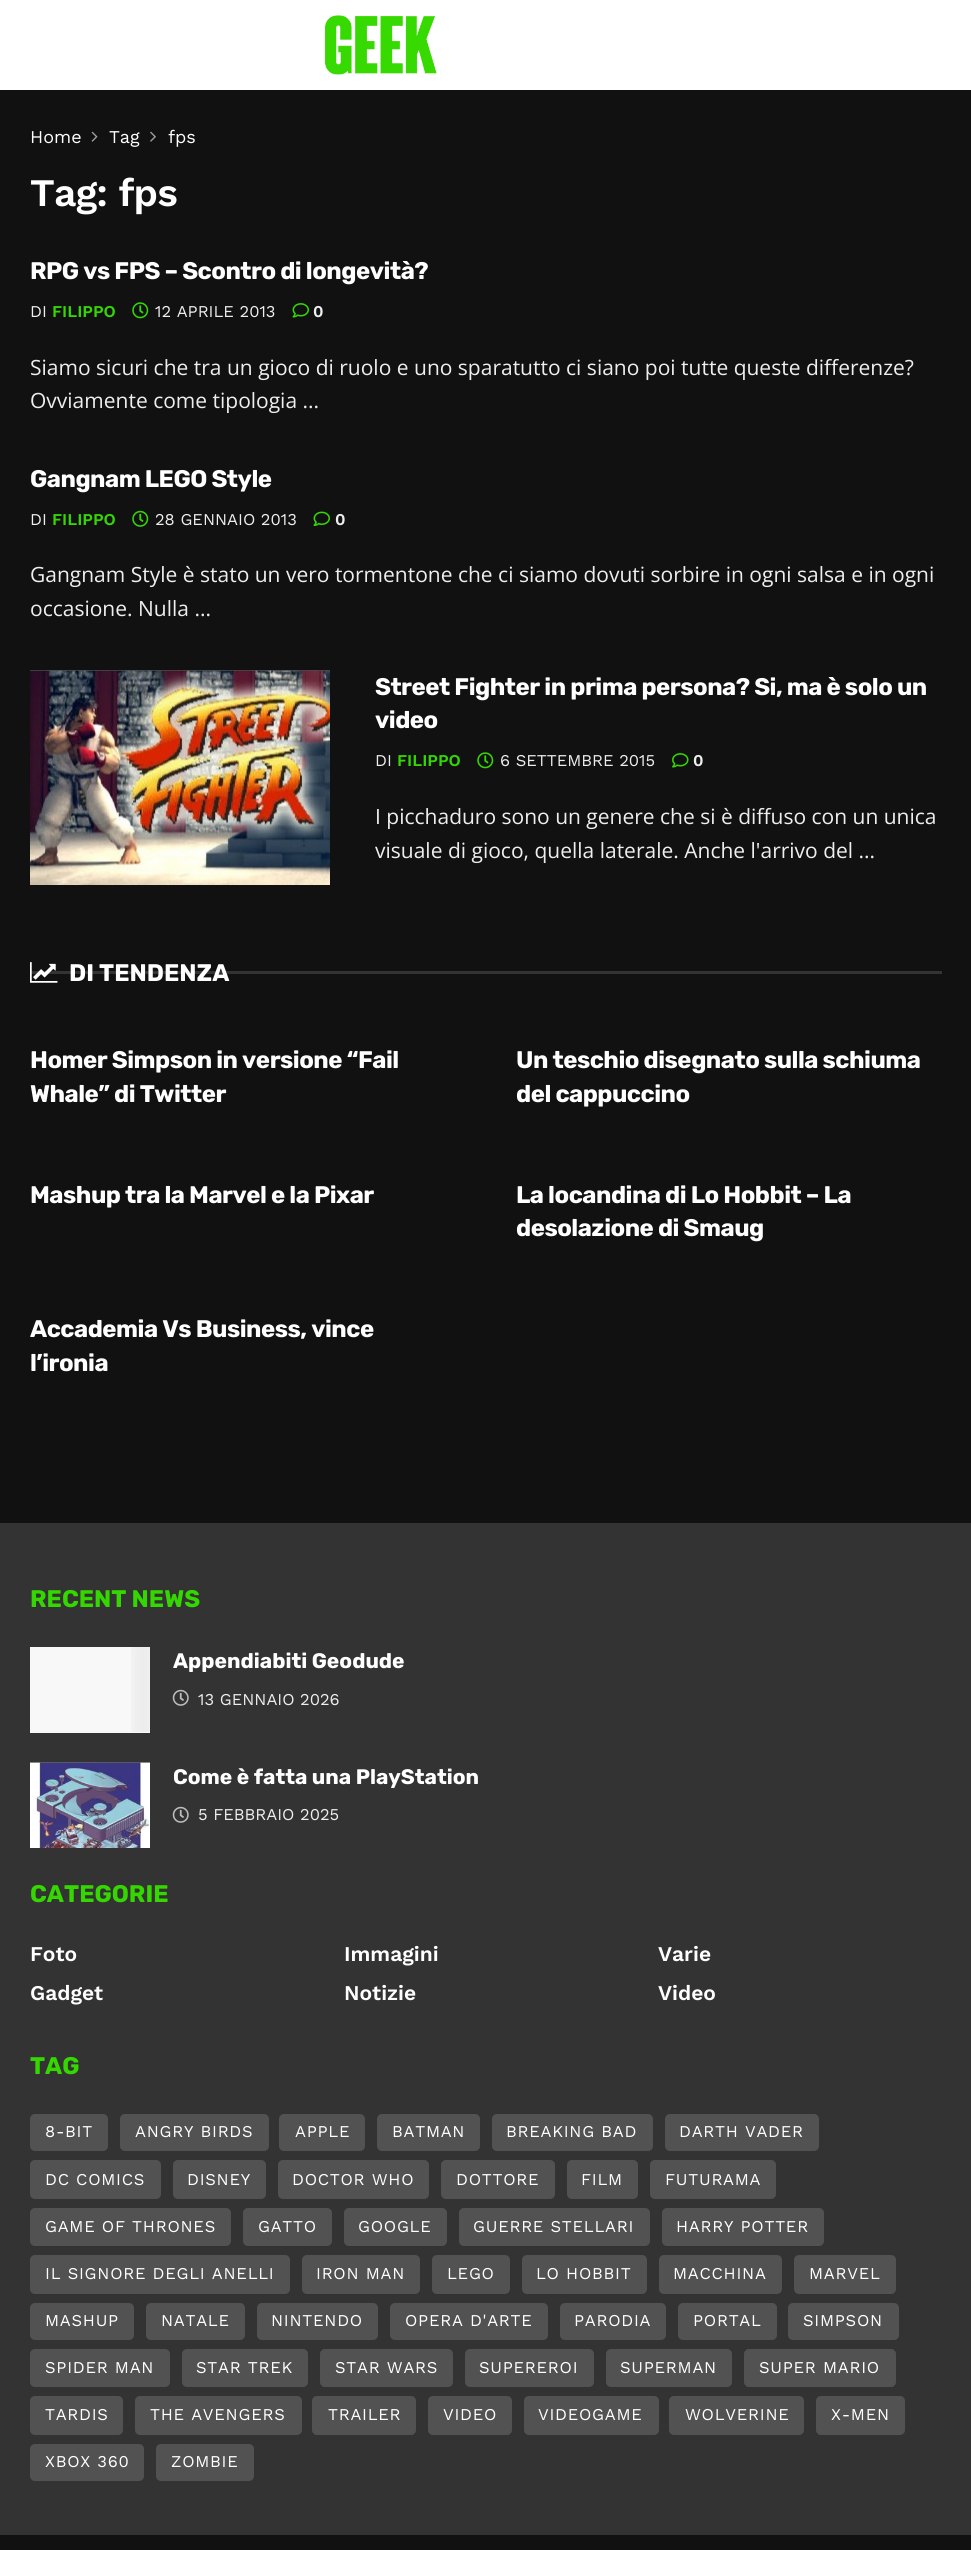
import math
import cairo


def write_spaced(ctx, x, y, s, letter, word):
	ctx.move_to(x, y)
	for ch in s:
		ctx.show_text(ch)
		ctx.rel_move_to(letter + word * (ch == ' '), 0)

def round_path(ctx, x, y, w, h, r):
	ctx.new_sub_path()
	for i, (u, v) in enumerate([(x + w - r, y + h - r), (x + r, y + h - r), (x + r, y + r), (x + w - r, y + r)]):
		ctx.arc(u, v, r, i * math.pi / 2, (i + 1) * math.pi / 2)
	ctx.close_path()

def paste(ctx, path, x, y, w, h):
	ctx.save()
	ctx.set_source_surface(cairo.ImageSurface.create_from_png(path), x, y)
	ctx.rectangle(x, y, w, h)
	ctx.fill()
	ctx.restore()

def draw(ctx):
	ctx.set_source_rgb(0.067, 0.067, 0.067)
	ctx.paint()
	ctx.set_source_rgb(1, 1, 1)
	ctx.rectangle(0, 0, 971, 90)
	ctx.fill()
	paste(ctx, 'media/1.png', 325, 15, 112, 60)
	ctx.select_font_face('Work Sans')
	ctx.set_font_size(18)
	ctx.move_to(30, 143)
	ctx.show_text('Home')
	paste(ctx, 'media/2.png', 91, 131, 7, 11)
	ctx.move_to(109, 143)
	ctx.show_text('Tag')
	paste(ctx, 'media/3.png', 150, 131, 6, 11)
	ctx.move_to(168, 143)
	ctx.show_text('fps')
	ctx.select_font_face('Work Sans SemiBold')
	ctx.set_font_size(39)
	write_spaced(ctx, 30, 206, 'Tag: fps', -0.75, 0)
	ctx.select_font_face('Rubik', cairo.FONT_SLANT_NORMAL, cairo.FONT_WEIGHT_BOLD)
	ctx.set_font_size(24)
	write_spaced(ctx, 30, 279, 'RPG vs FPS – Scontro di longevità?', -0.5, 0)
	ctx.select_font_face('Work Sans')
	ctx.set_font_size(16.5)
	ctx.set_source_rgb(0.933, 0.933, 0.933)
	ctx.move_to(30, 317)
	ctx.show_text('DI')
	ctx.select_font_face('Work Sans SemiBold')
	ctx.set_source_rgb(0.204, 0.847, 0)
	ctx.move_to(52, 317)
	ctx.show_text('FILIPPO')
	paste(ctx, 'media/4.png', 132, 302, 17, 17)
	ctx.select_font_face('Work Sans')
	ctx.set_source_rgb(0.933, 0.933, 0.933)
	ctx.move_to(155, 317)
	ctx.show_text('12 APRILE 2013')
	paste(ctx, 'media/5.png', 292, 303, 17, 15)
	ctx.select_font_face('Work Sans SemiBold')
	ctx.move_to(313, 317)
	ctx.show_text('0')
	ctx.select_font_face('Open Sans')
	ctx.set_font_size(21)
	ctx.move_to(30, 375)
	ctx.show_text('Siamo sicuri che tra un gioco di ruolo e uno sparatutto ci siano poi tutte queste differenze?')
	ctx.move_to(30, 408)
	ctx.show_text('Ovviamente come tipologia ...')
	ctx.select_font_face('Rubik', cairo.FONT_SLANT_NORMAL, cairo.FONT_WEIGHT_BOLD)
	ctx.set_font_size(24)
	ctx.set_source_rgb(1, 1, 1)
	write_spaced(ctx, 30, 487, 'Gangnam LEGO Style', -0.5, 0)
	ctx.select_font_face('Work Sans')
	ctx.set_font_size(16.5)
	ctx.set_source_rgb(0.933, 0.933, 0.933)
	ctx.move_to(30, 525)
	ctx.show_text('DI')
	ctx.select_font_face('Work Sans SemiBold')
	ctx.set_source_rgb(0.204, 0.847, 0)
	ctx.move_to(52, 525)
	ctx.show_text('FILIPPO')
	paste(ctx, 'media/6.png', 132, 510, 17, 17)
	ctx.select_font_face('Work Sans')
	ctx.set_source_rgb(0.933, 0.933, 0.933)
	ctx.move_to(155, 525)
	ctx.show_text('28 GENNAIO 2013')
	paste(ctx, 'media/7.png', 313, 511, 17, 15)
	ctx.select_font_face('Work Sans SemiBold')
	ctx.move_to(335, 525)
	ctx.show_text('0')
	ctx.select_font_face('Open Sans')
	ctx.set_font_size(21)
	ctx.move_to(30, 582)
	ctx.show_text('Gangnam Style è stato un vero tormentone che ci siamo dovuti sorbire in ogni salsa e in ogni')
	ctx.move_to(30, 616)
	ctx.show_text('occasione. Nulla ...')
	ctx.set_source_rgb(0.294, 0.294, 0.294)
	ctx.rectangle(30, 670, 300, 1)
	ctx.fill()
	paste(ctx, 'media/8.png', 30, 670, 300, 215)
	ctx.select_font_face('Rubik', cairo.FONT_SLANT_NORMAL, cairo.FONT_WEIGHT_BOLD)
	ctx.set_font_size(24)
	ctx.set_source_rgb(1, 1, 1)
	write_spaced(ctx, 375, 695, 'Street Fighter in prima persona? Si, ma è solo un', -0.5, 0)
	write_spaced(ctx, 375, 728, 'video', -0.5, 0)
	ctx.select_font_face('Work Sans')
	ctx.set_font_size(16.5)
	ctx.set_source_rgb(0.933, 0.933, 0.933)
	ctx.move_to(375, 766)
	ctx.show_text('DI')
	ctx.select_font_face('Work Sans SemiBold')
	ctx.set_source_rgb(0.204, 0.847, 0)
	ctx.move_to(397, 766)
	ctx.show_text('FILIPPO')
	paste(ctx, 'media/4.png', 477, 752, 17, 17)
	ctx.select_font_face('Work Sans')
	ctx.set_source_rgb(0.933, 0.933, 0.933)
	ctx.move_to(500, 766)
	ctx.show_text('6 SETTEMBRE 2015')
	paste(ctx, 'media/9.png', 672, 753, 17, 15)
	ctx.select_font_face('Work Sans SemiBold')
	ctx.move_to(693, 766)
	ctx.show_text('0')
	ctx.select_font_face('Open Sans')
	ctx.set_font_size(21)
	ctx.move_to(375, 824)
	ctx.show_text('I picchaduro sono un genere che si è diffuso con un unica')
	ctx.move_to(375, 858)
	ctx.show_text('visuale di gioco, quella laterale. Anche l\'arrivo del ...')
	ctx.set_source_rgb(0.2, 0.2, 0.2)
	ctx.rectangle(30, 971, 912, 3)
	ctx.fill()
	paste(ctx, 'media/10.png', 30, 962, 28, 21)
	ctx.select_font_face('Rubik', cairo.FONT_SLANT_NORMAL, cairo.FONT_WEIGHT_BOLD)
	ctx.set_font_size(24)
	ctx.set_source_rgb(1, 1, 1)
	ctx.move_to(69, 981)
	ctx.show_text('DI TENDENZA')
	for x, y, s in [
		(30, 1068, 'Homer Simpson in versione “Fail'),
		(30, 1102, 'Whale” di Twitter'),
		(516, 1068, 'Un teschio disegnato sulla schiuma'),
		(516, 1102, 'del cappuccino'),
		(30, 1203, 'Mashup tra la Marvel e la Pixar'),
		(516, 1203, 'La locandina di Lo Hobbit – La'),
		(516, 1236, 'desolazione di Smaug'),
		(30, 1337, 'Accademia Vs Business, vince'),
		(30, 1371, 'l’ironia'),
	]:
		write_spaced(ctx, x, y, s, -0.5, 0)
	ctx.set_source_rgb(0.2, 0.2, 0.2)
	ctx.rectangle(0, 1523, 971, 1012)
	ctx.fill()
	ctx.set_source_rgb(0.204, 0.847, 0)
	ctx.move_to(30, 1607)
	ctx.show_text('RECENT NEWS')
	ctx.set_source_rgb(0.969, 0.969, 0.969)
	ctx.rectangle(30, 1647, 120, 86)
	ctx.fill()
	paste(ctx, 'media/11.png', 131, 1647, 19, 85)
	ctx.set_font_size(21)
	ctx.set_source_rgb(1, 1, 1)
	ctx.move_to(173, 1668)
	ctx.show_text('Appendiabiti Geodude')
	paste(ctx, 'media/12.png', 172, 1689, 17, 17)
	ctx.select_font_face('Work Sans')
	ctx.set_font_size(16.5)
	ctx.set_source_rgb(0.933, 0.933, 0.933)
	ctx.move_to(198, 1705)
	ctx.show_text('13 GENNAIO 2026')
	ctx.set_source_rgb(0.392, 0.392, 0.392)
	ctx.rectangle(30, 1762, 120, 1)
	ctx.fill()
	paste(ctx, 'media/13.png', 30, 1762, 120, 86)
	ctx.select_font_face('Rubik', cairo.FONT_SLANT_NORMAL, cairo.FONT_WEIGHT_BOLD)
	ctx.set_font_size(21)
	ctx.set_source_rgb(1, 1, 1)
	ctx.move_to(173, 1784)
	ctx.show_text('Come è fatta una PlayStation')
	paste(ctx, 'media/12.png', 172, 1806, 17, 17)
	ctx.select_font_face('Work Sans')
	ctx.set_font_size(16.5)
	ctx.set_source_rgb(0.933, 0.933, 0.933)
	ctx.move_to(198, 1820)
	ctx.show_text('5 FEBBRAIO 2025')
	ctx.select_font_face('Rubik', cairo.FONT_SLANT_NORMAL, cairo.FONT_WEIGHT_BOLD)
	ctx.set_font_size(24)
	ctx.set_source_rgb(0.204, 0.847, 0)
	ctx.move_to(30, 1902)
	ctx.show_text('CATEGORIE')
	ctx.select_font_face('Work Sans SemiBold')
	ctx.set_font_size(21)
	ctx.set_source_rgb(1, 1, 1)
	for x, y, s in [
		(30, 1961, 'Foto'),
		(344, 1961, 'Immagini'),
		(658, 1961, 'Varie'),
		(30, 2000, 'Gadget'),
		(344, 2000, 'Notizie'),
		(658, 2000, 'Video'),
	]:
		ctx.move_to(x, y)
		ctx.show_text(s)
	ctx.select_font_face('Rubik', cairo.FONT_SLANT_NORMAL, cairo.FONT_WEIGHT_BOLD)
	ctx.set_font_size(24)
	ctx.set_source_rgb(0.204, 0.847, 0)
	ctx.move_to(30, 2074)
	ctx.show_text('TAG')
	ctx.set_source_rgb(0.322, 0.322, 0.322)
	round_path(ctx, 30, 2114, 78, 37, 5)
	ctx.fill()
	ctx.select_font_face('Work Sans')
	ctx.set_font_size(16.5)
	ctx.set_source_rgb(1, 1, 1)
	write_spaced(ctx, 45, 2137, '8-BIT', 0.75, 0)
	ctx.set_source_rgb(0.322, 0.322, 0.322)
	round_path(ctx, 120, 2114, 149, 37, 5)
	ctx.fill()
	ctx.set_source_rgb(1, 1, 1)
	write_spaced(ctx, 135, 2137, 'ANGRY BIRDS', 0.75, 0)
	ctx.set_source_rgb(0.322, 0.322, 0.322)
	round_path(ctx, 279, 2114, 86, 37, 5)
	ctx.fill()
	ctx.set_source_rgb(1, 1, 1)
	write_spaced(ctx, 295, 2137, 'APPLE', 0.75, 0)
	ctx.set_source_rgb(0.322, 0.322, 0.322)
	round_path(ctx, 377, 2114, 103, 37, 5)
	ctx.fill()
	ctx.set_source_rgb(1, 1, 1)
	write_spaced(ctx, 392, 2137, 'BATMAN', 0.75, 0)
	ctx.set_source_rgb(0.322, 0.322, 0.322)
	round_path(ctx, 492, 2114, 161, 37, 5)
	ctx.fill()
	ctx.set_source_rgb(1, 1, 1)
	write_spaced(ctx, 506, 2137, 'BREAKING BAD', 0.75, 0)
	ctx.set_source_rgb(0.322, 0.322, 0.322)
	round_path(ctx, 665, 2114, 154, 37, 5)
	ctx.fill()
	ctx.set_source_rgb(1, 1, 1)
	write_spaced(ctx, 679, 2137, 'DARTH VADER', 0.75, 0)
	ctx.set_source_rgb(0.322, 0.322, 0.322)
	round_path(ctx, 30, 2160, 131, 39, 5)
	ctx.fill()
	ctx.set_source_rgb(1, 1, 1)
	write_spaced(ctx, 45, 2185, 'DC COMICS', 0.75, 0)
	ctx.set_source_rgb(0.322, 0.322, 0.322)
	round_path(ctx, 173, 2160, 93, 39, 5)
	ctx.fill()
	ctx.set_source_rgb(1, 1, 1)
	write_spaced(ctx, 187, 2185, 'DISNEY', 0.75, 0)
	ctx.set_source_rgb(0.322, 0.322, 0.322)
	round_path(ctx, 278, 2160, 151, 39, 5)
	ctx.fill()
	ctx.set_source_rgb(1, 1, 1)
	write_spaced(ctx, 292, 2185, 'DOCTOR WHO', 0.75, 0)
	ctx.set_source_rgb(0.322, 0.322, 0.322)
	round_path(ctx, 441, 2160, 114, 39, 5)
	ctx.fill()
	ctx.set_source_rgb(1, 1, 1)
	write_spaced(ctx, 456, 2185, 'DOTTORE', 0.75, 0)
	ctx.set_source_rgb(0.322, 0.322, 0.322)
	round_path(ctx, 567, 2160, 71, 39, 5)
	ctx.fill()
	ctx.set_source_rgb(1, 1, 1)
	write_spaced(ctx, 581, 2185, 'FILM', 0.75, 0)
	ctx.set_source_rgb(0.322, 0.322, 0.322)
	round_path(ctx, 650, 2160, 126, 39, 5)
	ctx.fill()
	ctx.set_source_rgb(1, 1, 1)
	write_spaced(ctx, 665, 2185, 'FUTURAMA', 0.75, 0)
	ctx.set_source_rgb(0.322, 0.322, 0.322)
	round_path(ctx, 30, 2208, 201, 38, 5)
	ctx.fill()
	ctx.set_source_rgb(1, 1, 1)
	write_spaced(ctx, 45, 2232, 'GAME OF THRONES', 0.75, 0)
	ctx.set_source_rgb(0.322, 0.322, 0.322)
	round_path(ctx, 243, 2208, 89, 38, 5)
	ctx.fill()
	ctx.set_source_rgb(1, 1, 1)
	write_spaced(ctx, 258, 2232, 'GATTO', 0.75, 0)
	ctx.set_source_rgb(0.322, 0.322, 0.322)
	round_path(ctx, 344, 2208, 103, 38, 5)
	ctx.fill()
	ctx.set_source_rgb(1, 1, 1)
	write_spaced(ctx, 358, 2232, 'GOOGLE', 0.75, 0)
	ctx.set_source_rgb(0.322, 0.322, 0.322)
	round_path(ctx, 459, 2208, 191, 38, 5)
	ctx.fill()
	ctx.set_source_rgb(1, 1, 1)
	write_spaced(ctx, 473, 2232, 'GUERRE STELLARI', 0.75, 0)
	ctx.set_source_rgb(0.322, 0.322, 0.322)
	round_path(ctx, 662, 2208, 162, 38, 5)
	ctx.fill()
	ctx.set_source_rgb(1, 1, 1)
	write_spaced(ctx, 676, 2232, 'HARRY POTTER', 0.75, 0)
	ctx.set_source_rgb(0.322, 0.322, 0.322)
	round_path(ctx, 30, 2255, 260, 39, 5)
	ctx.fill()
	ctx.set_source_rgb(1, 1, 1)
	write_spaced(ctx, 45, 2279, 'IL SIGNORE DEGLI ANELLI', 0.75, 0)
	ctx.set_source_rgb(0.322, 0.322, 0.322)
	round_path(ctx, 302, 2255, 118, 39, 5)
	ctx.fill()
	ctx.set_source_rgb(1, 1, 1)
	write_spaced(ctx, 316, 2279, 'IRON MAN', 0.75, 0)
	ctx.set_source_rgb(0.322, 0.322, 0.322)
	round_path(ctx, 432, 2255, 78, 39, 5)
	ctx.fill()
	ctx.set_source_rgb(1, 1, 1)
	write_spaced(ctx, 447, 2279, 'LEGO', 0.75, 0)
	ctx.set_source_rgb(0.322, 0.322, 0.322)
	round_path(ctx, 522, 2255, 125, 39, 5)
	ctx.fill()
	ctx.set_source_rgb(1, 1, 1)
	write_spaced(ctx, 536, 2279, 'LO HOBBIT', 0.75, 0)
	ctx.set_source_rgb(0.322, 0.322, 0.322)
	round_path(ctx, 659, 2255, 123, 39, 5)
	ctx.fill()
	ctx.set_source_rgb(1, 1, 1)
	write_spaced(ctx, 673, 2279, 'MACCHINA', 0.75, 0)
	ctx.set_source_rgb(0.322, 0.322, 0.322)
	round_path(ctx, 794, 2255, 102, 39, 5)
	ctx.fill()
	ctx.set_source_rgb(1, 1, 1)
	write_spaced(ctx, 809, 2279, 'MARVEL', 0.75, 0)
	ctx.set_source_rgb(0.322, 0.322, 0.322)
	round_path(ctx, 30, 2303, 104, 37, 5)
	ctx.fill()
	ctx.set_source_rgb(1, 1, 1)
	write_spaced(ctx, 45, 2326, 'MASHUP', 0.75, 0)
	ctx.set_source_rgb(0.322, 0.322, 0.322)
	round_path(ctx, 146, 2303, 99, 37, 5)
	ctx.fill()
	ctx.set_source_rgb(1, 1, 1)
	write_spaced(ctx, 161, 2326, 'NATALE', 0.75, 0)
	ctx.set_source_rgb(0.322, 0.322, 0.322)
	round_path(ctx, 257, 2303, 121, 37, 5)
	ctx.fill()
	ctx.set_source_rgb(1, 1, 1)
	write_spaced(ctx, 271, 2326, 'NINTENDO', 0.75, 0)
	ctx.set_source_rgb(0.322, 0.322, 0.322)
	round_path(ctx, 390, 2303, 158, 37, 5)
	ctx.fill()
	ctx.set_source_rgb(1, 1, 1)
	write_spaced(ctx, 405, 2326, 'OPERA D\'ARTE', 0.75, 0)
	ctx.set_source_rgb(0.322, 0.322, 0.322)
	round_path(ctx, 560, 2303, 106, 37, 5)
	ctx.fill()
	ctx.set_source_rgb(1, 1, 1)
	write_spaced(ctx, 574, 2326, 'PARODIA', 0.75, 0)
	ctx.set_source_rgb(0.322, 0.322, 0.322)
	round_path(ctx, 678, 2303, 99, 37, 5)
	ctx.fill()
	ctx.set_source_rgb(1, 1, 1)
	write_spaced(ctx, 693, 2326, 'PORTAL', 0.75, 0)
	ctx.set_source_rgb(0.322, 0.322, 0.322)
	round_path(ctx, 788, 2303, 111, 37, 5)
	ctx.fill()
	ctx.set_source_rgb(1, 1, 1)
	write_spaced(ctx, 803, 2326, 'SIMPSON', 0.75, 0)
	ctx.set_source_rgb(0.322, 0.322, 0.322)
	round_path(ctx, 30, 2349, 140, 38, 5)
	ctx.fill()
	ctx.set_source_rgb(1, 1, 1)
	write_spaced(ctx, 45, 2373, 'SPIDER MAN', 0.75, 0)
	ctx.set_source_rgb(0.322, 0.322, 0.322)
	round_path(ctx, 182, 2349, 126, 38, 5)
	ctx.fill()
	ctx.set_source_rgb(1, 1, 1)
	write_spaced(ctx, 196, 2373, 'STAR TREK', 0.75, 0)
	ctx.set_source_rgb(0.322, 0.322, 0.322)
	round_path(ctx, 320, 2349, 133, 38, 5)
	ctx.fill()
	ctx.set_source_rgb(1, 1, 1)
	write_spaced(ctx, 335, 2373, 'STAR WARS', 0.75, 0)
	ctx.set_source_rgb(0.322, 0.322, 0.322)
	round_path(ctx, 465, 2349, 129, 38, 5)
	ctx.fill()
	ctx.set_source_rgb(1, 1, 1)
	write_spaced(ctx, 479, 2373, 'SUPEREROI', 0.75, 0)
	ctx.set_source_rgb(0.322, 0.322, 0.322)
	round_path(ctx, 606, 2349, 126, 38, 5)
	ctx.fill()
	ctx.set_source_rgb(1, 1, 1)
	write_spaced(ctx, 620, 2373, 'SUPERMAN', 0.75, 0)
	ctx.set_source_rgb(0.322, 0.322, 0.322)
	round_path(ctx, 744, 2349, 152, 38, 5)
	ctx.fill()
	ctx.set_source_rgb(1, 1, 1)
	write_spaced(ctx, 759, 2373, 'SUPER MARIO', 0.75, 0)
	ctx.set_source_rgb(0.322, 0.322, 0.322)
	round_path(ctx, 30, 2396, 93, 39, 5)
	ctx.fill()
	ctx.set_source_rgb(1, 1, 1)
	write_spaced(ctx, 45, 2420, 'TARDIS', 0.75, 0)
	ctx.set_source_rgb(0.322, 0.322, 0.322)
	round_path(ctx, 135, 2396, 167, 39, 5)
	ctx.fill()
	ctx.set_source_rgb(1, 1, 1)
	write_spaced(ctx, 150, 2420, 'THE AVENGERS', 0.75, 0)
	ctx.set_source_rgb(0.322, 0.322, 0.322)
	round_path(ctx, 312, 2396, 104, 39, 5)
	ctx.fill()
	ctx.set_source_rgb(1, 1, 1)
	write_spaced(ctx, 328, 2420, 'TRAILER', 0.75, 0)
	ctx.set_source_rgb(0.322, 0.322, 0.322)
	round_path(ctx, 428, 2396, 84, 39, 5)
	ctx.fill()
	ctx.set_source_rgb(1, 1, 1)
	write_spaced(ctx, 443, 2420, 'VIDEO', 0.75, 0)
	ctx.set_source_rgb(0.322, 0.322, 0.322)
	round_path(ctx, 524, 2396, 135, 39, 5)
	ctx.fill()
	ctx.set_source_rgb(1, 1, 1)
	write_spaced(ctx, 538, 2420, 'VIDEOGAME', 0.75, 0)
	ctx.set_source_rgb(0.322, 0.322, 0.322)
	round_path(ctx, 669, 2396, 135, 39, 5)
	ctx.fill()
	ctx.set_source_rgb(1, 1, 1)
	write_spaced(ctx, 685, 2420, 'WOLVERINE', 0.75, 0)
	ctx.set_source_rgb(0.322, 0.322, 0.322)
	round_path(ctx, 816, 2396, 89, 39, 5)
	ctx.fill()
	ctx.set_source_rgb(1, 1, 1)
	write_spaced(ctx, 831, 2420, 'X-MEN', 0.75, 0)
	ctx.set_source_rgb(0.322, 0.322, 0.322)
	round_path(ctx, 30, 2444, 114, 37, 5)
	ctx.fill()
	ctx.set_source_rgb(1, 1, 1)
	write_spaced(ctx, 45, 2467, 'XBOX 360', 0.75, 0)
	ctx.set_source_rgb(0.322, 0.322, 0.322)
	round_path(ctx, 156, 2444, 98, 37, 5)
	ctx.fill()
	ctx.set_source_rgb(1, 1, 1)
	write_spaced(ctx, 171, 2467, 'ZOMBIE', 0.75, 0)


surface = cairo.ImageSurface(cairo.FORMAT_RGB24, 971, 2550)
ctx = cairo.Context(surface)
options = cairo.FontOptions()
options.set_hint_metrics(cairo.HINT_METRICS_OFF)
options.set_hint_style(cairo.HINT_STYLE_NONE)
ctx.set_font_options(options)
ctx.set_miter_limit(4)
draw(ctx)
surface.write_to_png('image.png')
